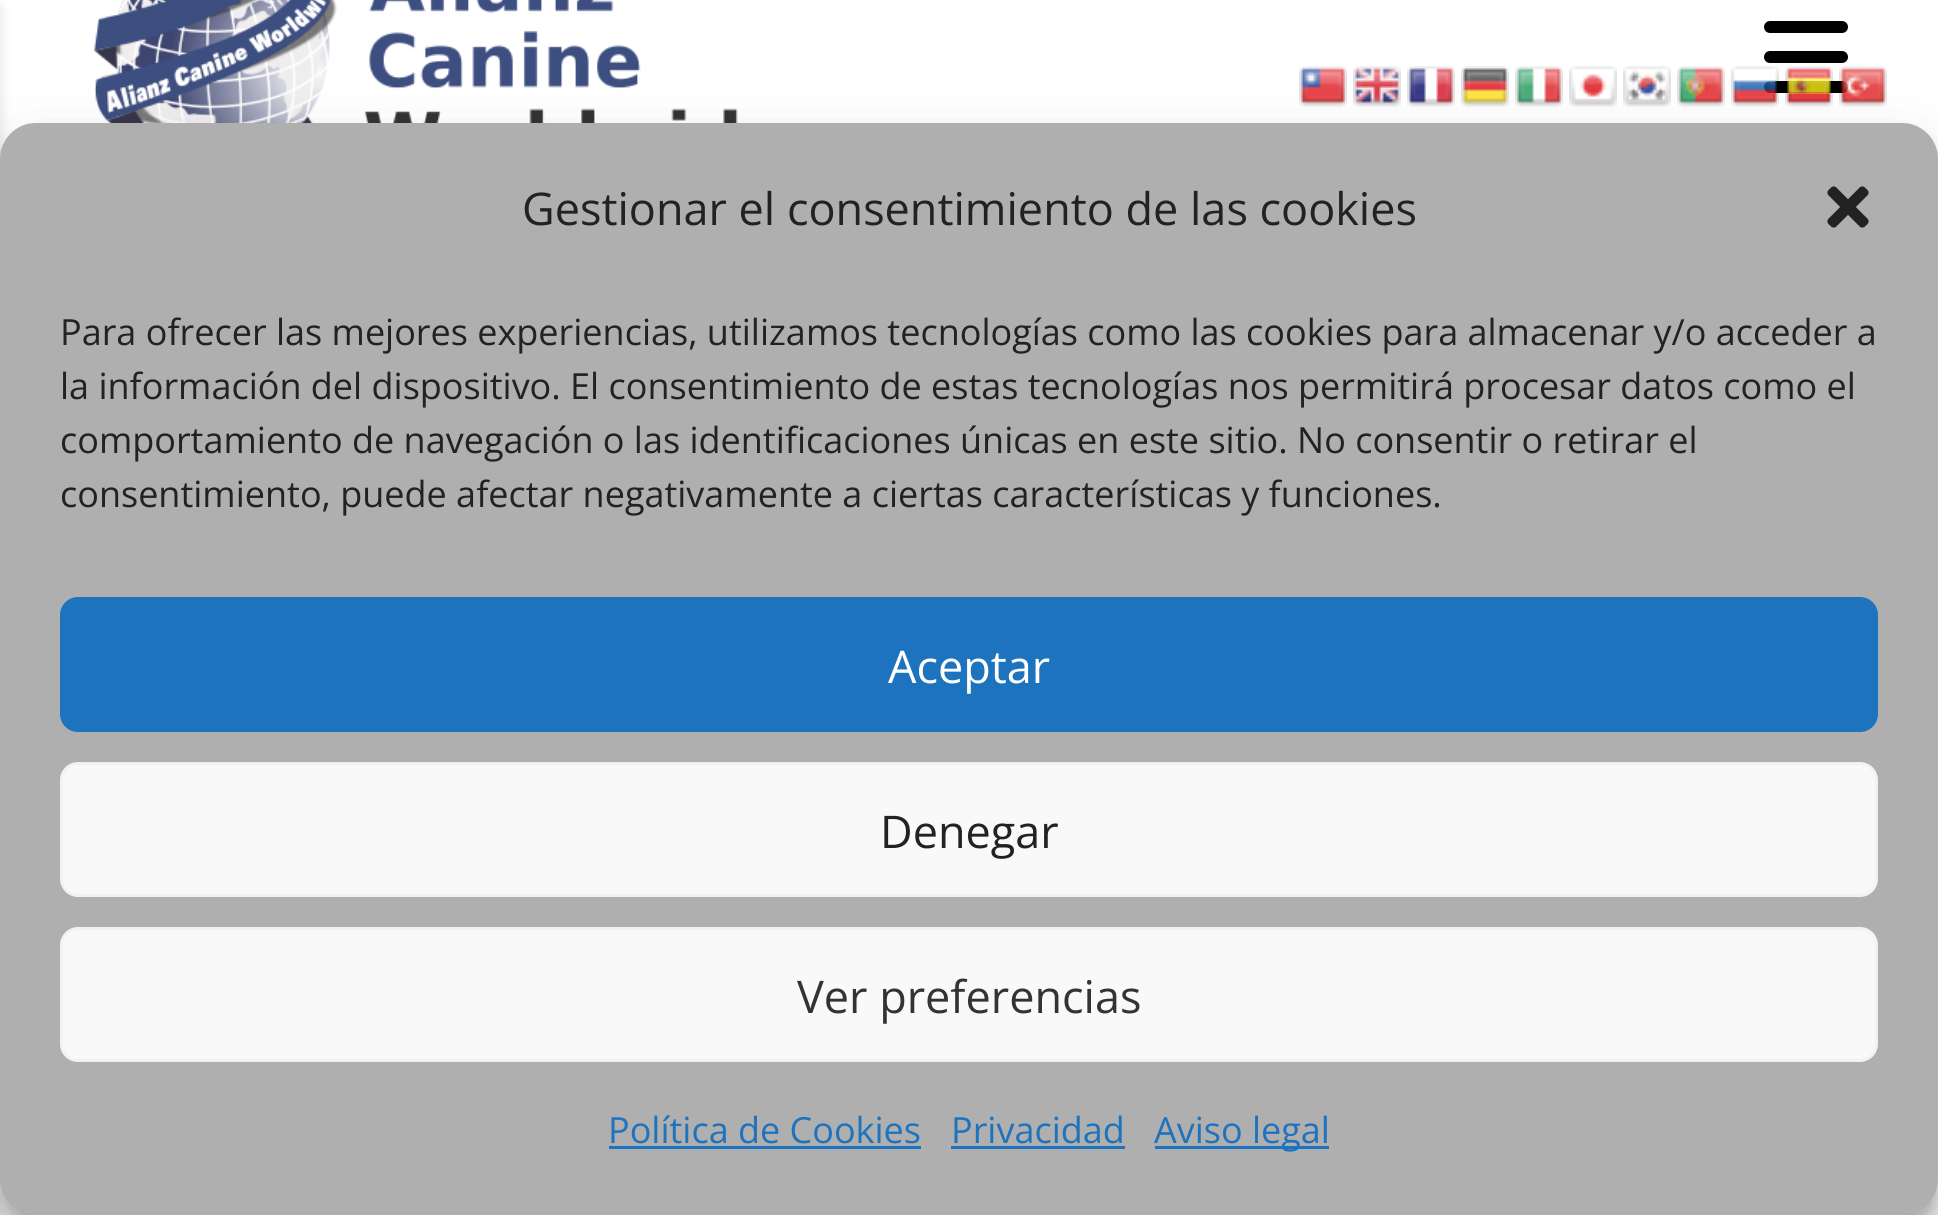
import math
import cairo


def round_path(ctx, x, y, w, h, r):
	ctx.new_sub_path()
	for i, (u, v) in enumerate([(x + w - r, y + h - r), (x + r, y + h - r), (x + r, y + r), (x + w - r, y + r)]):
		ctx.arc(u, v, r, i * math.pi / 2, (i + 1) * math.pi / 2)
	ctx.close_path()

def blur_box(ctx, x, y, w, h, r, blur, alpha):
	ctx.push_group_with_content(cairo.CONTENT_ALPHA)
	ctx.set_operator(cairo.OPERATOR_SOURCE)
	for i in range(15, -16, -2):
		e = blur * i / 6
		if min(w, h) + 2 * e > 0:
			ctx.set_source_rgba(0, 0, 0, alpha * math.erfc((i - 1) / 8.5) / 2)
			round_path(ctx, x - e, y - e, w + 2 * e, h + 2 * e, max(0, min(r + e + blur * .6, min(w, h) / 2 + e)))
			ctx.fill()
	ctx.mask(ctx.pop_group())

def paste(ctx, path, x, y, w, h):
	ctx.save()
	ctx.set_source_surface(cairo.ImageSurface.create_from_png(path), x, y)
	ctx.rectangle(x, y, w, h)
	ctx.fill()
	ctx.restore()

def draw(ctx):
	ctx.set_source_rgb(1, 1, 1)
	ctx.paint()
	ctx.set_source_rgb(0, 0, 0)
	blur_box(ctx, -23, 9, 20, 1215, 0, 7.5, 0.2)
	paste(ctx, 'media/1.png', 94, 0, 644, 123)
	ctx.set_source_rgb(0, 0, 0)
	round_path(ctx, 1764, 21, 84, 12, 6)
	ctx.fill()
	round_path(ctx, 1764, 51, 84, 12, 6)
	ctx.fill()
	round_path(ctx, 1764, 81, 84, 12, 6)
	ctx.fill()
	ctx.set_source_rgb(0, 0, 0)
	blur_box(ctx, 0, 153, 1938, 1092, 36, 30, 0.19)
	paste(ctx, 'media/2.png', 1299, 66, 48, 42)
	paste(ctx, 'media/3.png', 1353, 66, 48, 42)
	paste(ctx, 'media/4.png', 1407, 66, 48, 42)
	paste(ctx, 'media/5.png', 1461, 66, 48, 42)
	paste(ctx, 'media/6.png', 1515, 66, 48, 42)
	paste(ctx, 'media/7.png', 1569, 66, 48, 42)
	paste(ctx, 'media/8.png', 1623, 66, 48, 42)
	paste(ctx, 'media/9.png', 1677, 66, 48, 42)
	paste(ctx, 'media/10.png', 1731, 66, 48, 42)
	paste(ctx, 'media/11.png', 1785, 66, 48, 42)
	paste(ctx, 'media/12.png', 1839, 66, 48, 42)
	blur_box(ctx, 0, 141, 1938, 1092, 36, 9, 0.23)
	ctx.set_source_rgb(0.686, 0.686, 0.686)
	round_path(ctx, 0, 123, 1938, 1092, 36)
	ctx.fill()
	ctx.select_font_face('Open Sans')
	ctx.set_font_size(45)
	ctx.set_source_rgb(0.133, 0.133, 0.133)
	ctx.move_to(522, 225)
	ctx.show_text('Gestionar el consentimiento de las cookies')
	paste(ctx, 'media/13.png', 1827, 186, 42, 42)
	ctx.set_font_size(36)
	for x, y, s in [
		(60, 345, 'Para ofrecer las mejores experiencias, utilizamos tecnologías como las cookies para almacenar y/o acceder a'),
		(60, 399, 'la información del dispositivo. El consentimiento de estas tecnologías nos permitirá procesar datos como el'),
		(60, 453, 'comportamiento de navegación o las identificaciones únicas en este sitio. No consentir o retirar el'),
		(60, 507, 'consentimiento, puede afectar negativamente a ciertas características y funciones.'),
	]:
		ctx.move_to(x, y)
		ctx.show_text(s)
	ctx.set_source_rgb(0.118, 0.451, 0.745)
	round_path(ctx, 61.5, 598.5, 1815, 132, 16.5)
	ctx.fill_preserve()
	ctx.set_line_width(3)
	ctx.stroke()
	ctx.set_font_size(45)
	ctx.set_source_rgb(1, 1, 1)
	ctx.move_to(888, 683)
	ctx.show_text('Aceptar')
	ctx.set_source_rgb(0.976, 0.976, 0.976)
	round_path(ctx, 61.5, 763.5, 1815, 132, 16.5)
	ctx.fill_preserve()
	ctx.set_source_rgb(0.949, 0.949, 0.949)
	ctx.stroke()
	ctx.set_source_rgb(0.133, 0.133, 0.133)
	ctx.move_to(880, 848)
	ctx.show_text('Denegar')
	ctx.set_source_rgb(0.976, 0.976, 0.976)
	round_path(ctx, 61.5, 928.5, 1815, 132, 16.5)
	ctx.fill_preserve()
	ctx.set_source_rgb(0.949, 0.949, 0.949)
	ctx.stroke()
	ctx.set_source_rgb(0.2, 0.2, 0.2)
	ctx.move_to(797, 1013)
	ctx.show_text('Ver preferencias')
	ctx.set_font_size(36)
	ctx.set_source_rgb(0.118, 0.451, 0.745)
	ctx.move_to(608, 1143)
	ctx.show_text('Política de Cookies')
	ctx.rectangle(609, 1146, 312, 3)
	ctx.fill()
	ctx.move_to(951, 1143)
	ctx.show_text('Privacidad')
	ctx.rectangle(951, 1146, 174, 3)
	ctx.fill()
	ctx.rectangle(1155, 1146, 174, 3)
	ctx.fill()
	ctx.move_to(1154, 1143)
	ctx.show_text('Aviso legal')


surface = cairo.ImageSurface(cairo.FORMAT_RGB24, 1938, 1215)
ctx = cairo.Context(surface)
options = cairo.FontOptions()
options.set_hint_metrics(cairo.HINT_METRICS_OFF)
options.set_hint_style(cairo.HINT_STYLE_NONE)
ctx.set_font_options(options)
ctx.set_miter_limit(4)
draw(ctx)
surface.write_to_png('image.png')
